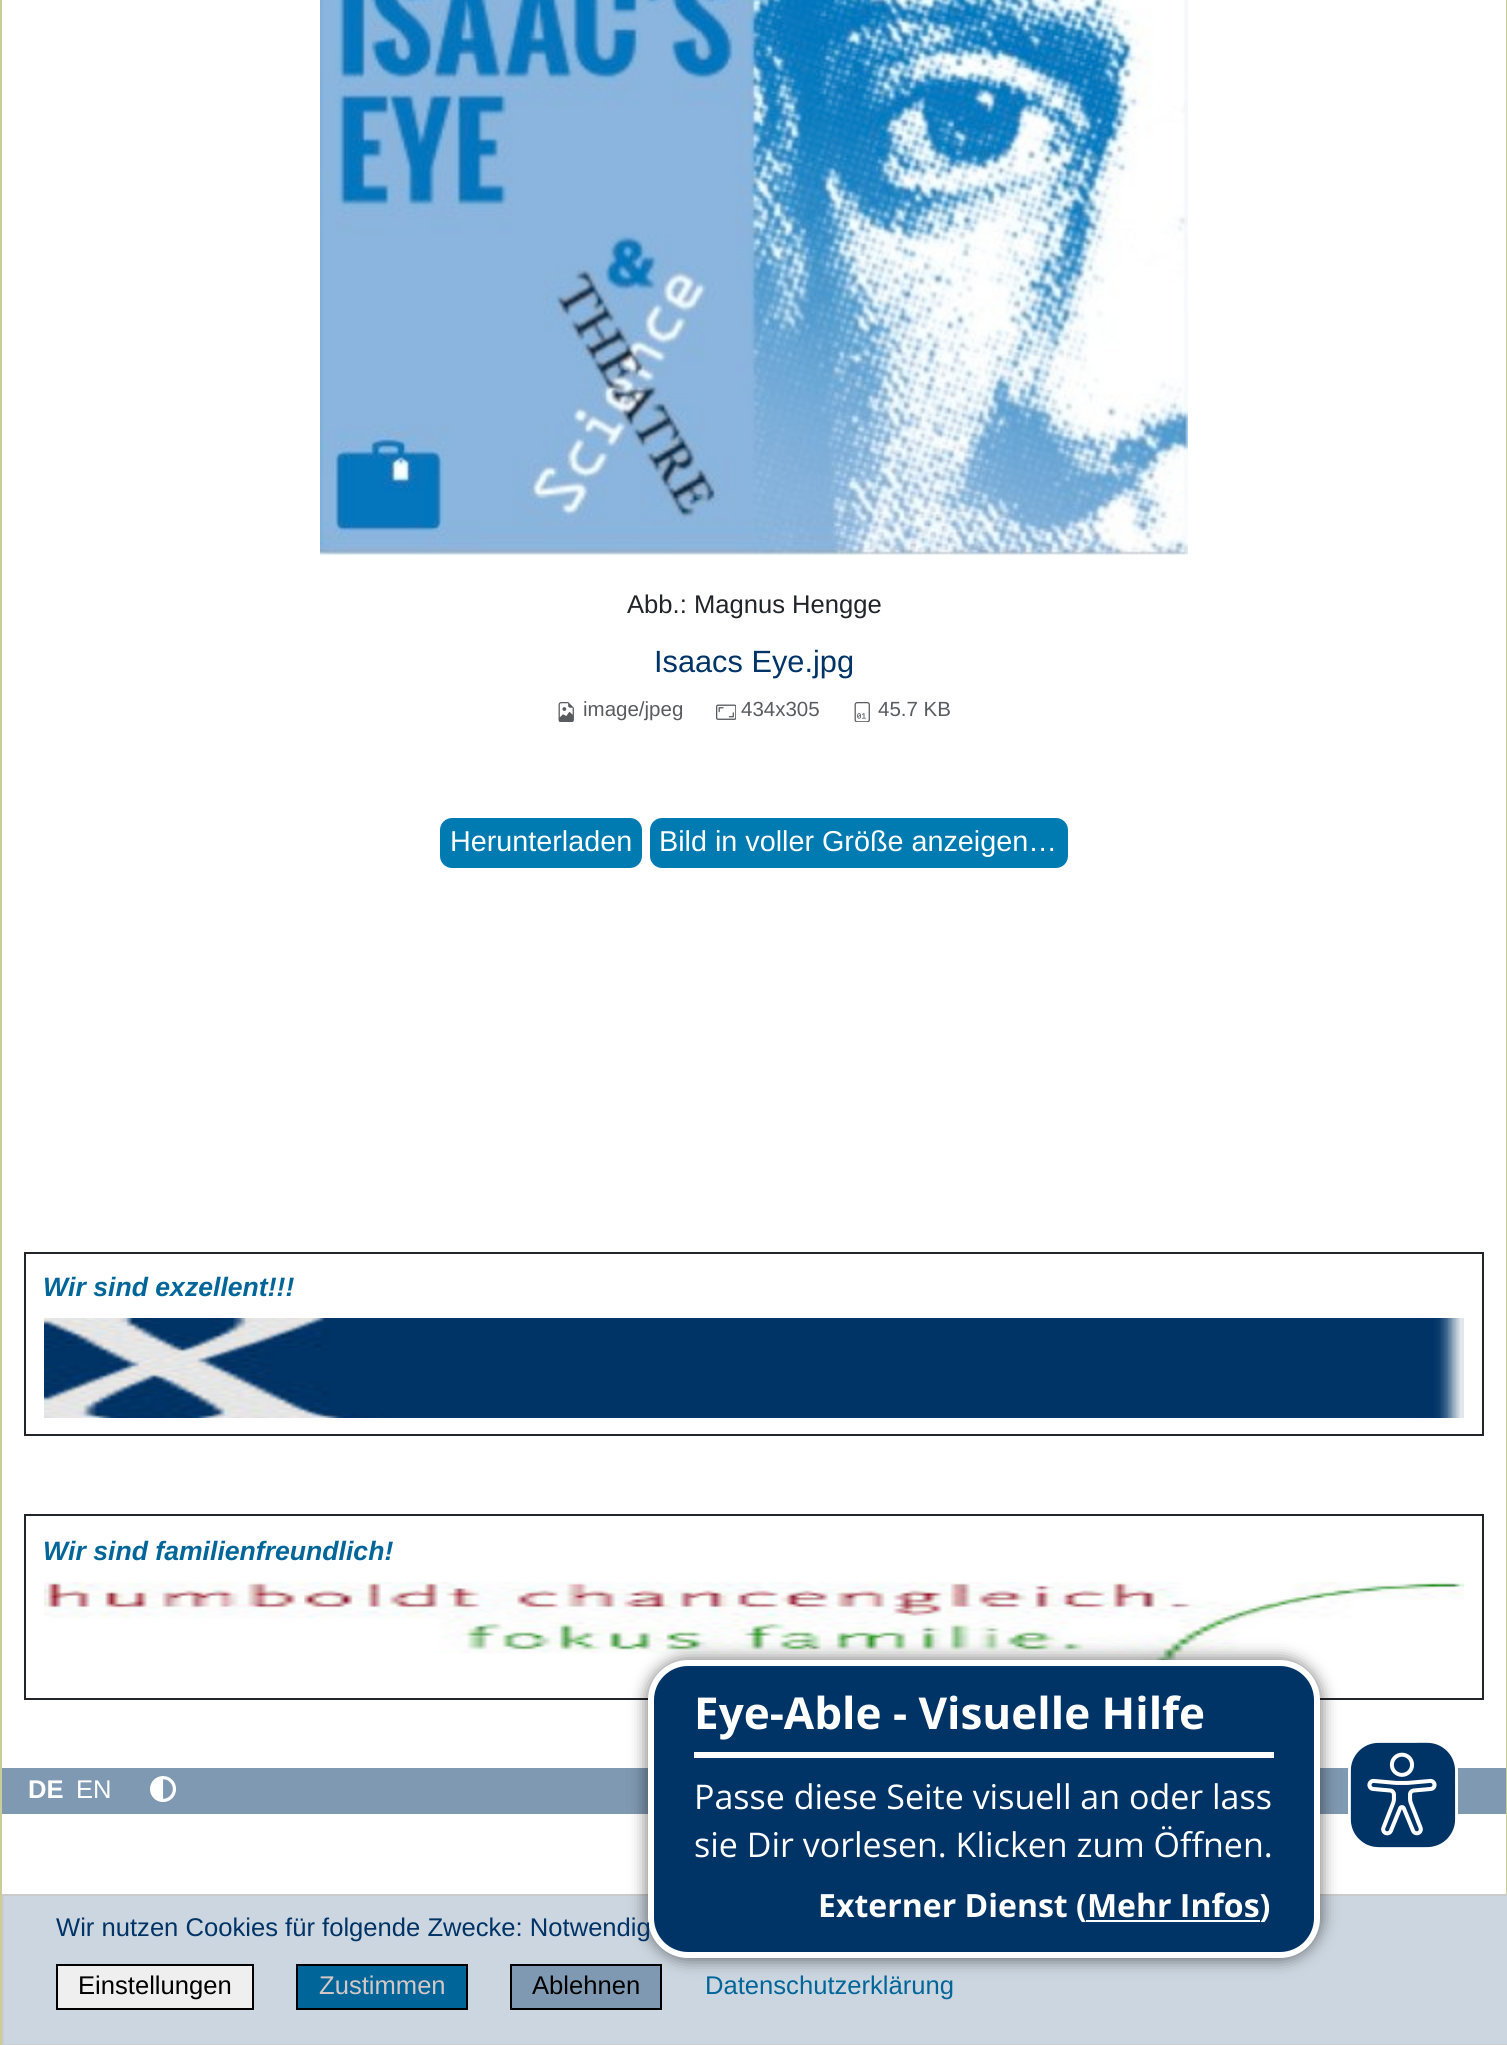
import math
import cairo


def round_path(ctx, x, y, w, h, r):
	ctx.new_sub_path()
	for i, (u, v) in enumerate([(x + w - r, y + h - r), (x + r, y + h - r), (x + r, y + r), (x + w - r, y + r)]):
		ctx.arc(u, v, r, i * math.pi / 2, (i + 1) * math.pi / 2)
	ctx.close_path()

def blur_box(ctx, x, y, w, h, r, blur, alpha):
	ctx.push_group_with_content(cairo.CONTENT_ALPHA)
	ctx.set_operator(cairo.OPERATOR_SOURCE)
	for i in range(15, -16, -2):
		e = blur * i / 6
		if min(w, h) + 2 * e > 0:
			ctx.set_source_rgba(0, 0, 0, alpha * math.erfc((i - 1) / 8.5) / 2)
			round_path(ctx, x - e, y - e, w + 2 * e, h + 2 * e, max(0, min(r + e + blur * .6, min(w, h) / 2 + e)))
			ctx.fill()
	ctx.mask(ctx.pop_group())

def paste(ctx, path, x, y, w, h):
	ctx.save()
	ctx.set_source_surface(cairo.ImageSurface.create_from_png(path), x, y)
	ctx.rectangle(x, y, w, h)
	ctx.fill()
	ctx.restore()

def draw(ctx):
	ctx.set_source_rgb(1, 1, 1)
	ctx.paint()
	ctx.set_source_rgb(0.8, 0.8, 0.6)
	ctx.rectangle(1506, 0, 1, 1894)
	ctx.fill()
	ctx.rectangle(0, 0, 2, 2045)
	ctx.fill()
	paste(ctx, 'media/1.png', 320, 0, 868, 556)
	ctx.select_font_face('Liberation Sans')
	ctx.set_font_size(25.6)
	ctx.set_source_rgb(0.129, 0.145, 0.161)
	ctx.move_to(627, 613)
	ctx.show_text('Abb.: Magnus Hengge')
	ctx.set_font_size(30.75)
	ctx.set_source_rgb(0, 0.2, 0.4)
	ctx.move_to(654, 672)
	ctx.show_text('Isaacs Eye.jpg')
	paste(ctx, 'media/2.png', 558, 702, 16, 20)
	ctx.set_font_size(20.5)
	ctx.set_source_rgb(0.349, 0.361, 0.373)
	ctx.move_to(583, 716)
	ctx.show_text('image/jpeg')
	paste(ctx, 'media/3.png', 716, 704, 20, 16)
	ctx.move_to(741, 716)
	ctx.show_text('434x305')
	paste(ctx, 'media/4.png', 854, 702, 16, 20)
	ctx.move_to(878, 716)
	ctx.show_text('45.7 KB')
	ctx.set_source_rgb(0, 0.482, 0.694)
	round_path(ctx, 440, 818, 202, 50, 12)
	ctx.fill()
	ctx.set_font_size(28.75)
	ctx.set_source_rgb(1, 1, 1)
	ctx.move_to(450, 851)
	ctx.show_text('Herunterladen')
	ctx.set_source_rgb(0, 0.482, 0.694)
	round_path(ctx, 650, 818, 418, 50, 12)
	ctx.fill()
	ctx.set_source_rgb(1, 1, 1)
	ctx.move_to(659, 851)
	ctx.show_text('Bild in voller Größe anzeigen…')
	ctx.rectangle(25, 1253, 1458, 182)
	ctx.set_source_rgb(0.129, 0.145, 0.161)
	ctx.stroke()
	ctx.select_font_face('Liberation Sans', cairo.FONT_SLANT_ITALIC, cairo.FONT_WEIGHT_BOLD)
	ctx.set_font_size(26.6)
	ctx.set_source_rgb(0, 0.4, 0.6)
	ctx.move_to(43, 1296)
	ctx.show_text('Wir sind exzellent!!!')
	paste(ctx, 'media/5.png', 44, 1318, 1420, 100)
	ctx.rectangle(25, 1515, 1458, 184)
	ctx.set_source_rgb(0.129, 0.145, 0.161)
	ctx.stroke()
	ctx.set_source_rgb(0, 0.4, 0.6)
	ctx.move_to(43, 1560)
	ctx.show_text('Wir sind familienfreundlich!')
	paste(ctx, 'media/6.png', 44, 1582, 1420, 100)
	ctx.set_source_rgb(0.502, 0.6, 0.698)
	ctx.rectangle(2, 1768, 1504, 46)
	ctx.fill()
	ctx.select_font_face('Liberation Sans', cairo.FONT_SLANT_NORMAL, cairo.FONT_WEIGHT_BOLD)
	ctx.set_font_size(25.6)
	ctx.set_source_rgb(1, 1, 1)
	ctx.move_to(28, 1798)
	ctx.show_text('DE')
	ctx.select_font_face('Liberation Sans')
	ctx.move_to(76, 1798)
	ctx.show_text('EN')
	paste(ctx, 'media/7.png', 150, 1776, 26, 26)
	ctx.set_source_rgb(0.8, 0.839, 0.878)
	ctx.rectangle(3, 1895, 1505, 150)
	ctx.fill_preserve()
	ctx.set_source_rgb(0.8, 0.8, 0.8)
	ctx.stroke()
	ctx.set_source_rgb(0.502, 0.6, 0.698)
	ctx.rectangle(511, 1965, 150, 44)
	ctx.fill_preserve()
	ctx.set_source_rgb(0, 0, 0)
	ctx.stroke()
	ctx.set_source_rgb(0, 0, 0)
	blur_box(ctx, 646, 1658, 676, 302, 42, 8, 0.5)
	ctx.set_source_rgb(0, 0.2, 0.4)
	round_path(ctx, 651, 1663, 666, 292, 37)
	ctx.fill_preserve()
	ctx.set_source_rgb(1, 1, 1)
	ctx.set_line_width(6)
	ctx.stroke()
	ctx.rectangle(694, 1752, 580, 6)
	ctx.fill()
	ctx.select_font_face('Open Sans', cairo.FONT_SLANT_NORMAL, cairo.FONT_WEIGHT_BOLD)
	ctx.set_font_size(44)
	ctx.move_to(694, 1729)
	ctx.show_text('Eye-Able - Visuelle Hilfe')
	ctx.select_font_face('Open Sans')
	ctx.set_font_size(34)
	ctx.move_to(694, 1809)
	ctx.show_text('Passe diese Seite visuell an oder lass')
	ctx.move_to(694, 1857)
	ctx.show_text('sie Dir vorlesen. Klicken zum Öffnen.')
	ctx.select_font_face('Open Sans', cairo.FONT_SLANT_NORMAL, cairo.FONT_WEIGHT_BOLD)
	ctx.set_font_size(32)
	ctx.move_to(818, 1917)
	ctx.show_text('Externer Dienst (Mehr Infos)')
	ctx.rectangle(1086, 1920, 174, 2)
	ctx.fill()
	paste(ctx, 'media/8.png', 1348, 1742, 110, 106)
	ctx.select_font_face('Liberation Sans')
	ctx.set_font_size(25.6)
	ctx.set_source_rgb(0, 0.2, 0.4)
	ctx.move_to(56, 1936)
	ctx.show_text('Wir nutzen Cookies für folgende Zwecke: Notwendig')
	ctx.set_source_rgb(0.937, 0.937, 0.937)
	ctx.rectangle(57, 1965, 196, 44)
	ctx.fill_preserve()
	ctx.set_source_rgb(0, 0, 0)
	ctx.set_line_width(2)
	ctx.stroke()
	ctx.move_to(78, 1994)
	ctx.show_text('Einstellungen')
	ctx.set_source_rgb(0, 0.4, 0.6)
	ctx.rectangle(297, 1965, 170, 44)
	ctx.fill_preserve()
	ctx.set_source_rgb(0, 0, 0)
	ctx.stroke()
	ctx.set_source_rgb(0.835, 0.78, 0.78)
	ctx.move_to(319, 1994)
	ctx.show_text('Zustimmen')
	ctx.set_source_rgb(0, 0, 0)
	ctx.move_to(532, 1994)
	ctx.show_text('Ablehnen')
	ctx.set_source_rgb(0, 0.4, 0.6)
	ctx.move_to(705, 1994)
	ctx.show_text('Datenschutzerklärung')


surface = cairo.ImageSurface(cairo.FORMAT_RGB24, 1507, 2045)
ctx = cairo.Context(surface)
options = cairo.FontOptions()
options.set_hint_metrics(cairo.HINT_METRICS_OFF)
options.set_hint_style(cairo.HINT_STYLE_NONE)
ctx.set_font_options(options)
ctx.set_miter_limit(4)
draw(ctx)
surface.write_to_png('image.png')
